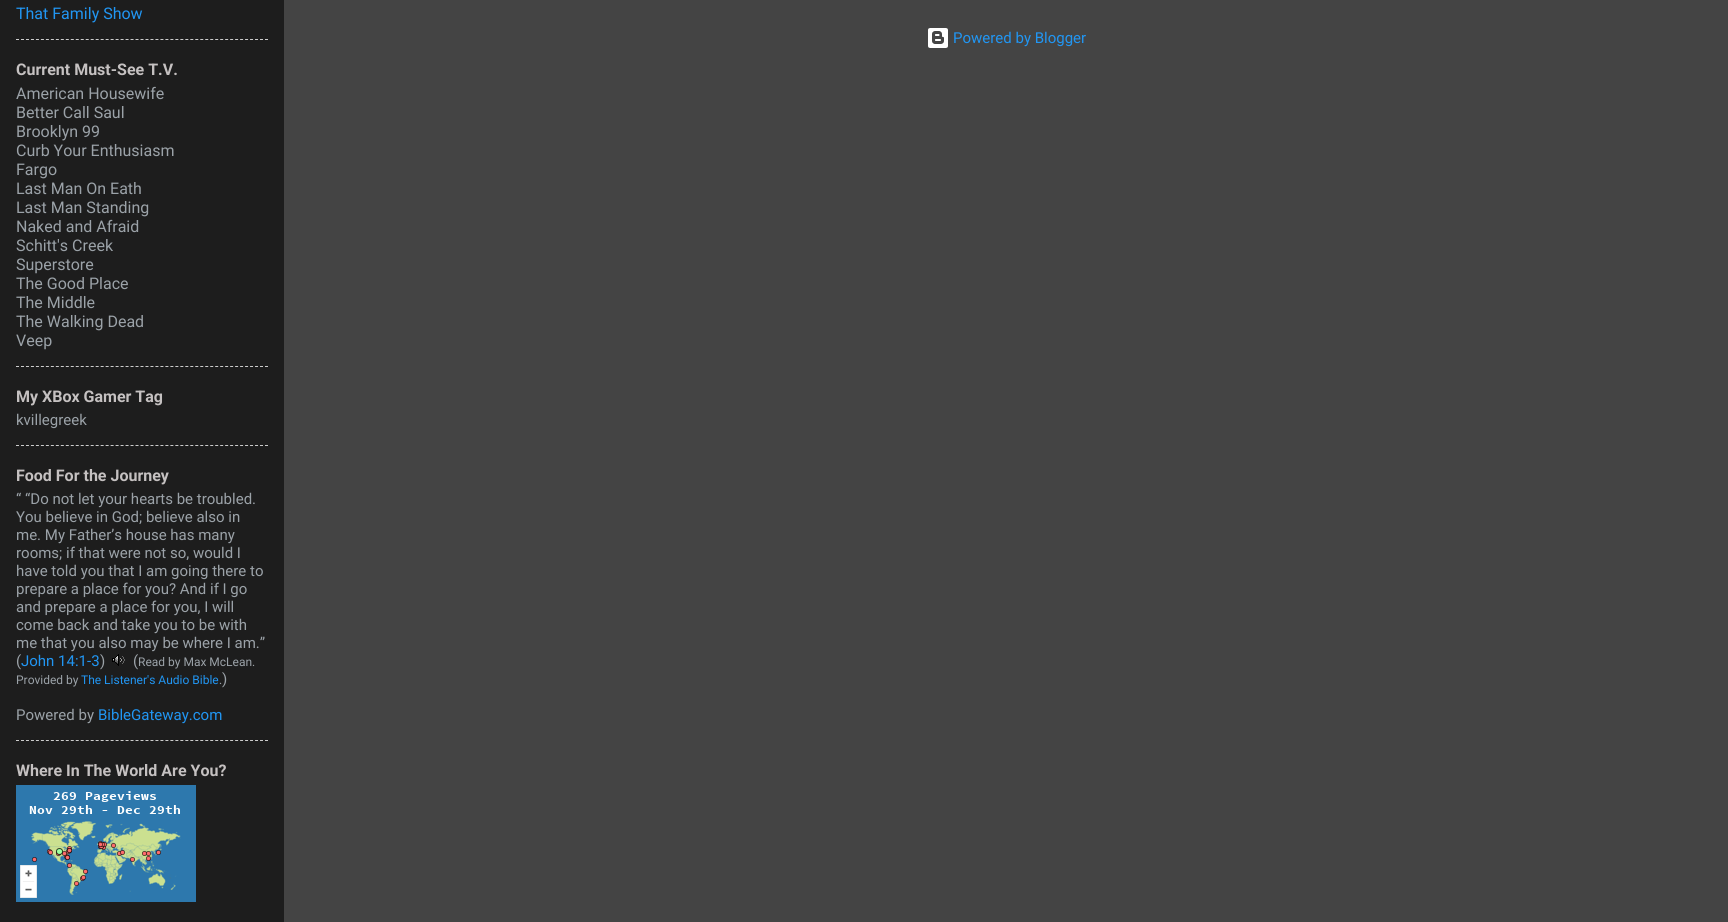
import math
import cairo


def paste(ctx, path, x, y, w, h):
	ctx.save()
	ctx.set_source_surface(cairo.ImageSurface.create_from_png(path), x, y)
	ctx.rectangle(x, y, w, h)
	ctx.fill()
	ctx.restore()

def draw(ctx):
	ctx.set_source_rgb(0.267, 0.267, 0.267)
	ctx.paint()
	ctx.set_source_rgb(0.114, 0.114, 0.114)
	ctx.rectangle(0, 0, 284, 922)
	ctx.fill()
	ctx.select_font_face('Roboto')
	ctx.set_font_size(16)
	ctx.set_source_rgb(0.129, 0.588, 0.953)
	ctx.move_to(16, 19)
	ctx.show_text('That Family Show')
	ctx.new_path()
	ctx.move_to(16, 39.5)
	ctx.line_to(268, 39.5)
	ctx.set_source_rgb(0.8, 0.8, 0.8)
	ctx.set_line_width(1)
	ctx.set_dash([3, 1.98])
	ctx.stroke()
	ctx.select_font_face('Roboto', cairo.FONT_SLANT_NORMAL, cairo.FONT_WEIGHT_BOLD)
	ctx.set_source_rgb(0.773, 0.757, 0.757)
	ctx.move_to(16, 75)
	ctx.show_text('Current Must-See T.V.')
	ctx.select_font_face('Roboto')
	ctx.set_source_rgb(0.608, 0.635, 0.659)
	for x, y, s in [
		(16, 99, 'American Housewife'),
		(16, 118, 'Better Call Saul'),
		(16, 137, 'Brooklyn 99'),
		(16, 156, 'Curb Your Enthusiasm'),
		(16, 175, 'Fargo'),
		(16, 194, 'Last Man On Eath'),
		(16, 213, 'Last Man Standing'),
		(16, 232, 'Naked and Afraid'),
		(16, 251, 'Schitt\'s Creek'),
		(16, 270, 'Superstore'),
		(16, 289, 'The Good Place'),
		(16, 308, 'The Middle'),
		(16, 327, 'The Walking Dead'),
		(16, 346, 'Veep'),
	]:
		ctx.move_to(x, y)
		ctx.show_text(s)
	ctx.new_path()
	ctx.move_to(16, 366.5)
	ctx.line_to(268, 366.5)
	ctx.set_source_rgb(0.8, 0.8, 0.8)
	ctx.stroke()
	ctx.select_font_face('Roboto', cairo.FONT_SLANT_NORMAL, cairo.FONT_WEIGHT_BOLD)
	ctx.set_source_rgb(0.773, 0.757, 0.757)
	ctx.move_to(16, 402)
	ctx.show_text('My XBox Gamer Tag')
	ctx.select_font_face('Roboto')
	ctx.set_font_size(15)
	ctx.set_source_rgb(0.608, 0.635, 0.659)
	ctx.move_to(16, 425)
	ctx.show_text('kvillegreek')
	ctx.new_path()
	ctx.move_to(16, 445.5)
	ctx.line_to(268, 445.5)
	ctx.set_source_rgb(0.8, 0.8, 0.8)
	ctx.stroke()
	ctx.select_font_face('Roboto', cairo.FONT_SLANT_NORMAL, cairo.FONT_WEIGHT_BOLD)
	ctx.set_font_size(16)
	ctx.set_source_rgb(0.773, 0.757, 0.757)
	ctx.move_to(16, 481)
	ctx.show_text('Food For the Journey')
	ctx.select_font_face('Roboto')
	ctx.set_font_size(15)
	ctx.set_source_rgb(0.608, 0.635, 0.659)
	for x, y, s in [
		(16, 504, '“ “Do not let your hearts be troubled.'),
		(16, 522, 'You believe in God; believe also in'),
		(16, 540, 'me. My Father’s house has many'),
		(16, 558, 'rooms; if that were not so, would I'),
		(16, 576, 'have told you that I am going there to'),
		(16, 594, 'prepare a place for you? And if I go'),
		(16, 612, 'and prepare a place for you, I will'),
		(16, 630, 'come back and take you to be with'),
		(16, 648, 'me that you also may be where I am.”'),
		(16, 666, '('),
	]:
		ctx.move_to(x, y)
		ctx.show_text(s)
	ctx.set_source_rgb(0.129, 0.588, 0.953)
	ctx.move_to(21, 666)
	ctx.show_text('John 14:1-3')
	ctx.set_source_rgb(0.608, 0.635, 0.659)
	ctx.move_to(100, 666)
	ctx.show_text(')')
	paste(ctx, 'media/1.png', 112, 654, 13, 12)
	ctx.move_to(133, 666)
	ctx.show_text('(')
	ctx.set_font_size(12)
	ctx.move_to(138, 666)
	ctx.show_text('Read by Max McLean.')
	ctx.move_to(16, 684)
	ctx.show_text('Provided by')
	ctx.set_source_rgb(0.129, 0.588, 0.953)
	ctx.move_to(81, 684)
	ctx.show_text('The Listener\'s Audio Bible')
	ctx.set_source_rgb(0.608, 0.635, 0.659)
	ctx.move_to(219, 684)
	ctx.show_text('.')
	ctx.set_font_size(15)
	ctx.move_to(222, 684)
	ctx.show_text(')')
	ctx.move_to(16, 720)
	ctx.show_text('Powered by')
	ctx.set_source_rgb(0.129, 0.588, 0.953)
	ctx.move_to(98, 720)
	ctx.show_text('BibleGateway.com')
	ctx.new_path()
	ctx.move_to(16, 740.5)
	ctx.line_to(268, 740.5)
	ctx.set_source_rgb(0.8, 0.8, 0.8)
	ctx.stroke()
	ctx.select_font_face('Roboto', cairo.FONT_SLANT_NORMAL, cairo.FONT_WEIGHT_BOLD)
	ctx.set_font_size(16)
	ctx.set_source_rgb(0.773, 0.757, 0.757)
	ctx.move_to(16, 776)
	ctx.show_text('Where In The World Are You?')
	paste(ctx, 'media/2.png', 16, 785, 180, 117)
	paste(ctx, 'media/3.png', 928, 28, 20, 20)
	ctx.select_font_face('Roboto')
	ctx.set_font_size(15)
	ctx.set_source_rgb(0.129, 0.588, 0.953)
	ctx.move_to(953, 43)
	ctx.show_text('Powered by Blogger')


surface = cairo.ImageSurface(cairo.FORMAT_RGB24, 1728, 922)
ctx = cairo.Context(surface)
options = cairo.FontOptions()
options.set_hint_metrics(cairo.HINT_METRICS_OFF)
options.set_hint_style(cairo.HINT_STYLE_NONE)
ctx.set_font_options(options)
ctx.set_miter_limit(4)
draw(ctx)
surface.write_to_png('image.png')
